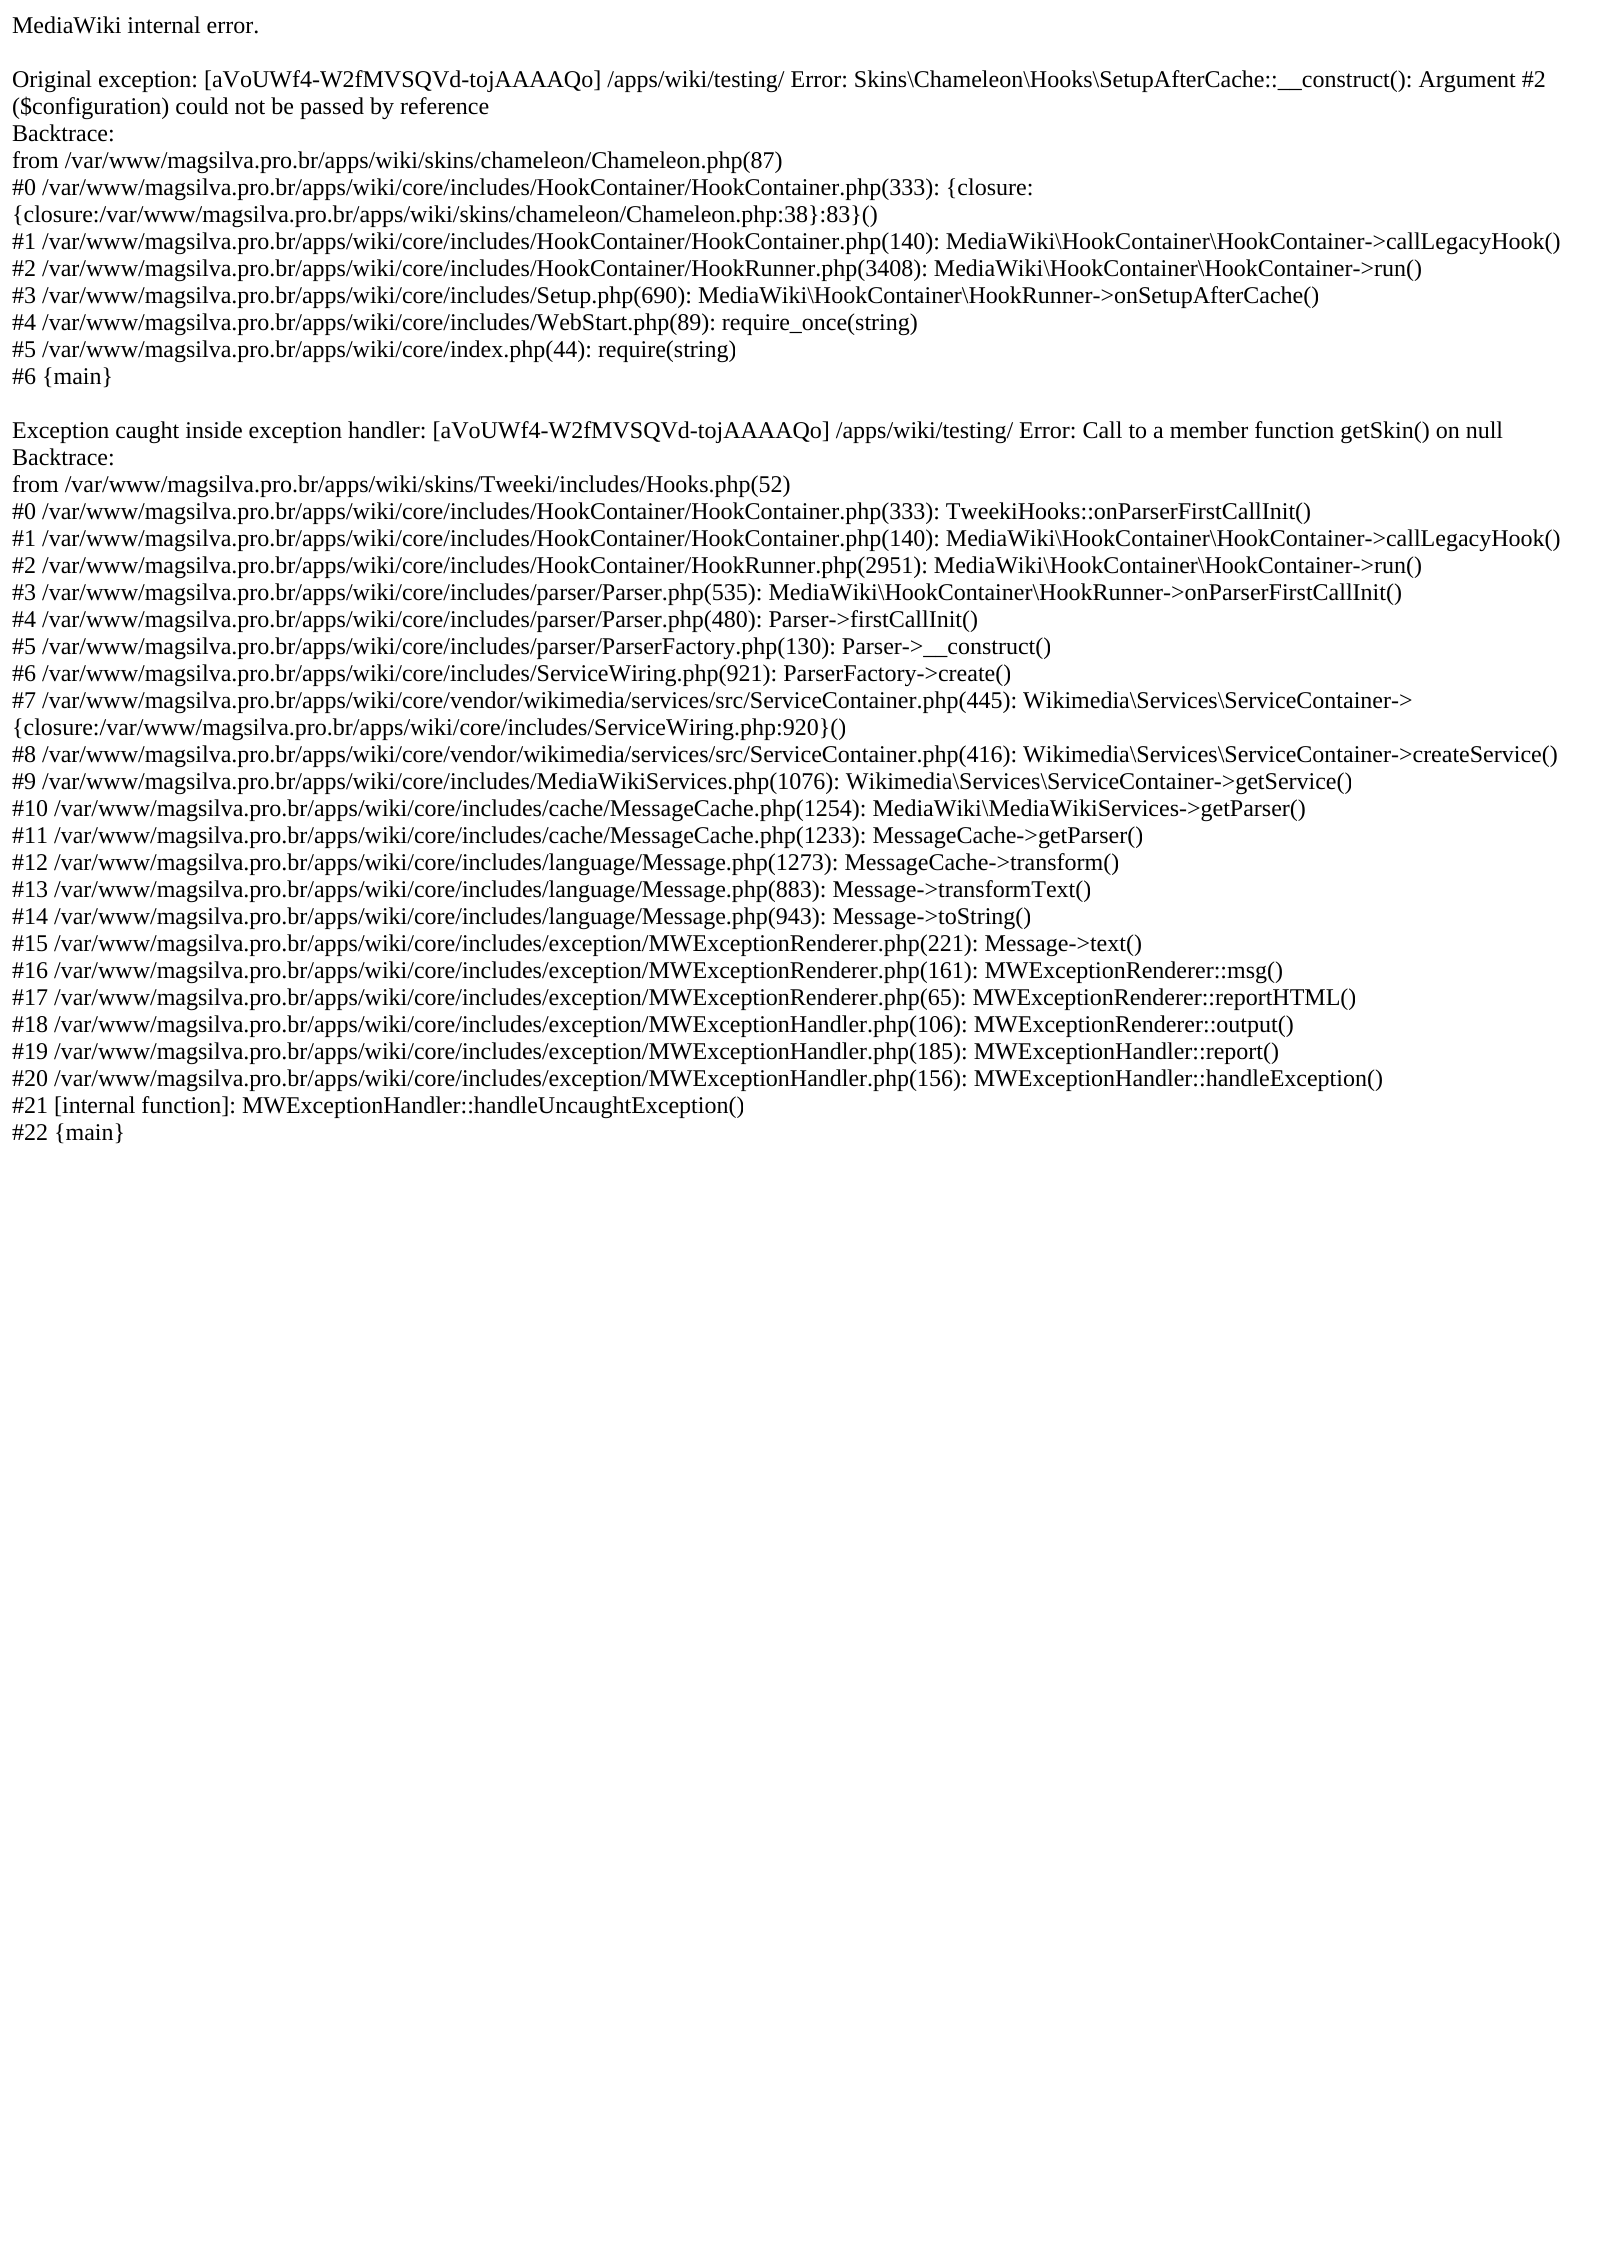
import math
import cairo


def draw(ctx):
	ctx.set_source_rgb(1, 1, 1)
	ctx.paint()
	ctx.select_font_face('Liberation Serif')
	ctx.set_font_size(24)
	ctx.set_source_rgb(0, 0, 0)
	for x, y, s in [
		(12, 33, 'MediaWiki internal error.'),
		(12, 87, 'Original exception: [aVoUWf4-W2fMVSQVd-tojAAAAQo] /apps/wiki/testing/ Error: Skins\\Chameleon\\Hooks\\SetupAfterCache::__construct(): Argument #2'),
		(12, 114, '($configuration) could not be passed by reference'),
		(12, 141, 'Backtrace:'),
		(12, 168, 'from /var/www/magsilva.pro.br/apps/wiki/skins/chameleon/Chameleon.php(87)'),
		(12, 195, '#0 /var/www/magsilva.pro.br/apps/wiki/core/includes/HookContainer/HookContainer.php(333): {closure:'),
		(12, 222, '{closure:/var/www/magsilva.pro.br/apps/wiki/skins/chameleon/Chameleon.php:38}:83}()'),
		(12, 249, '#1 /var/www/magsilva.pro.br/apps/wiki/core/includes/HookContainer/HookContainer.php(140): MediaWiki\\HookContainer\\HookContainer->callLegacyHook()'),
		(12, 276, '#2 /var/www/magsilva.pro.br/apps/wiki/core/includes/HookContainer/HookRunner.php(3408): MediaWiki\\HookContainer\\HookContainer->run()'),
		(12, 303, '#3 /var/www/magsilva.pro.br/apps/wiki/core/includes/Setup.php(690): MediaWiki\\HookContainer\\HookRunner->onSetupAfterCache()'),
		(12, 330, '#4 /var/www/magsilva.pro.br/apps/wiki/core/includes/WebStart.php(89): require_once(string)'),
		(12, 357, '#5 /var/www/magsilva.pro.br/apps/wiki/core/index.php(44): require(string)'),
		(12, 384, '#6 {main}'),
		(12, 438, 'Exception caught inside exception handler: [aVoUWf4-W2fMVSQVd-tojAAAAQo] /apps/wiki/testing/ Error: Call to a member function getSkin() on null'),
		(12, 465, 'Backtrace:'),
		(12, 492, 'from /var/www/magsilva.pro.br/apps/wiki/skins/Tweeki/includes/Hooks.php(52)'),
		(12, 519, '#0 /var/www/magsilva.pro.br/apps/wiki/core/includes/HookContainer/HookContainer.php(333): TweekiHooks::onParserFirstCallInit()'),
		(12, 546, '#1 /var/www/magsilva.pro.br/apps/wiki/core/includes/HookContainer/HookContainer.php(140): MediaWiki\\HookContainer\\HookContainer->callLegacyHook()'),
		(12, 573, '#2 /var/www/magsilva.pro.br/apps/wiki/core/includes/HookContainer/HookRunner.php(2951): MediaWiki\\HookContainer\\HookContainer->run()'),
		(12, 600, '#3 /var/www/magsilva.pro.br/apps/wiki/core/includes/parser/Parser.php(535): MediaWiki\\HookContainer\\HookRunner->onParserFirstCallInit()'),
		(12, 627, '#4 /var/www/magsilva.pro.br/apps/wiki/core/includes/parser/Parser.php(480): Parser->firstCallInit()'),
		(12, 654, '#5 /var/www/magsilva.pro.br/apps/wiki/core/includes/parser/ParserFactory.php(130): Parser->__construct()'),
		(12, 681, '#6 /var/www/magsilva.pro.br/apps/wiki/core/includes/ServiceWiring.php(921): ParserFactory->create()'),
		(12, 708, '#7 /var/www/magsilva.pro.br/apps/wiki/core/vendor/wikimedia/services/src/ServiceContainer.php(445): Wikimedia\\Services\\ServiceContainer->'),
		(12, 735, '{closure:/var/www/magsilva.pro.br/apps/wiki/core/includes/ServiceWiring.php:920}()'),
		(12, 762, '#8 /var/www/magsilva.pro.br/apps/wiki/core/vendor/wikimedia/services/src/ServiceContainer.php(416): Wikimedia\\Services\\ServiceContainer->createService()'),
		(12, 789, '#9 /var/www/magsilva.pro.br/apps/wiki/core/includes/MediaWikiServices.php(1076): Wikimedia\\Services\\ServiceContainer->getService()'),
		(12, 816, '#10 /var/www/magsilva.pro.br/apps/wiki/core/includes/cache/MessageCache.php(1254): MediaWiki\\MediaWikiServices->getParser()'),
		(12, 843, '#11 /var/www/magsilva.pro.br/apps/wiki/core/includes/cache/MessageCache.php(1233): MessageCache->getParser()'),
		(12, 870, '#12 /var/www/magsilva.pro.br/apps/wiki/core/includes/language/Message.php(1273): MessageCache->transform()'),
		(12, 897, '#13 /var/www/magsilva.pro.br/apps/wiki/core/includes/language/Message.php(883): Message->transformText()'),
		(12, 924, '#14 /var/www/magsilva.pro.br/apps/wiki/core/includes/language/Message.php(943): Message->toString()'),
		(12, 951, '#15 /var/www/magsilva.pro.br/apps/wiki/core/includes/exception/MWExceptionRenderer.php(221): Message->text()'),
		(12, 978, '#16 /var/www/magsilva.pro.br/apps/wiki/core/includes/exception/MWExceptionRenderer.php(161): MWExceptionRenderer::msg()'),
		(12, 1005, '#17 /var/www/magsilva.pro.br/apps/wiki/core/includes/exception/MWExceptionRenderer.php(65): MWExceptionRenderer::reportHTML()'),
		(12, 1032, '#18 /var/www/magsilva.pro.br/apps/wiki/core/includes/exception/MWExceptionHandler.php(106): MWExceptionRenderer::output()'),
		(12, 1059, '#19 /var/www/magsilva.pro.br/apps/wiki/core/includes/exception/MWExceptionHandler.php(185): MWExceptionHandler::report()'),
		(12, 1086, '#20 /var/www/magsilva.pro.br/apps/wiki/core/includes/exception/MWExceptionHandler.php(156): MWExceptionHandler::handleException()'),
		(12, 1113, '#21 [internal function]: MWExceptionHandler::handleUncaughtException()'),
		(12, 1140, '#22 {main}'),
	]:
		ctx.move_to(x, y)
		ctx.show_text(s)


surface = cairo.ImageSurface(cairo.FORMAT_RGB24, 1619, 2262)
ctx = cairo.Context(surface)
options = cairo.FontOptions()
options.set_hint_metrics(cairo.HINT_METRICS_OFF)
options.set_hint_style(cairo.HINT_STYLE_NONE)
ctx.set_font_options(options)
ctx.set_miter_limit(4)
draw(ctx)
surface.write_to_png('image.png')
